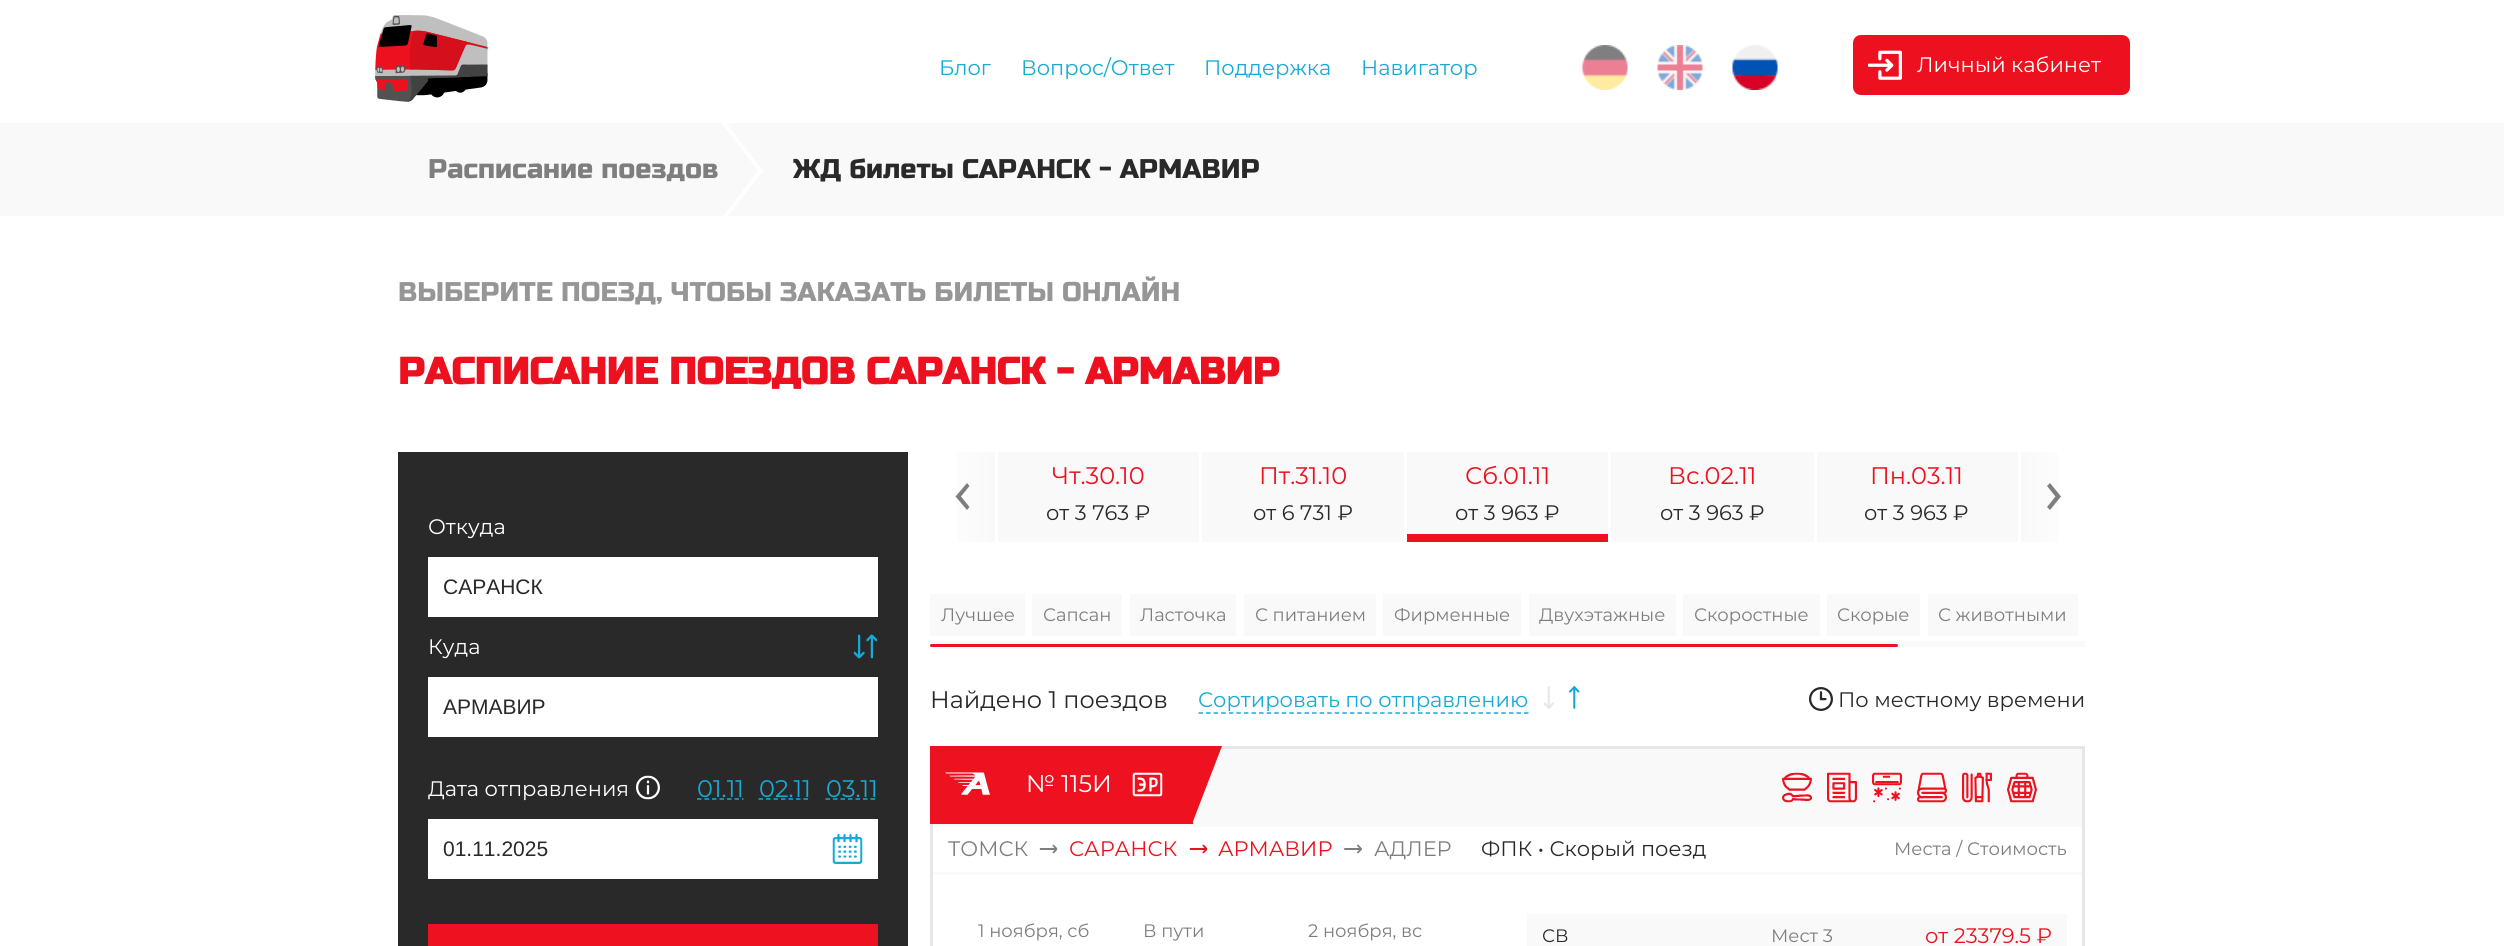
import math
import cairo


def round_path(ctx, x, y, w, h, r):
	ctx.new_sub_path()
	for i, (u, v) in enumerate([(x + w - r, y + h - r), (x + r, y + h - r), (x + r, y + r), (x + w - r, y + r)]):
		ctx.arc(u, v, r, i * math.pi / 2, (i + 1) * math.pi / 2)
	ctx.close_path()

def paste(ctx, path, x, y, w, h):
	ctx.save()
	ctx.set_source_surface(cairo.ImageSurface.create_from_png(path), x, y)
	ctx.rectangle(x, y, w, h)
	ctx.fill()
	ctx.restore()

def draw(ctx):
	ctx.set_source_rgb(1, 1, 1)
	ctx.paint()
	paste(ctx, 'media/1.png', 375, 15, 113, 87)
	ctx.select_font_face('Montserrat')
	ctx.set_font_size(21)
	ctx.set_source_rgb(0.09, 0.667, 0.839)
	for x, y, s in [
		(939, 75, 'Блог'),
		(1021, 75, 'Вопрос/Ответ'),
		(1204, 75, 'Поддержка'),
		(1361, 75, 'Навигатор'),
	]:
		ctx.move_to(x, y)
		ctx.show_text(s)
	paste(ctx, 'media/2.png', 1582, 45, 46, 45)
	paste(ctx, 'media/3.png', 1657, 45, 46, 45)
	paste(ctx, 'media/4.png', 1732, 45, 46, 45)
	ctx.set_source_rgb(0.929, 0.067, 0.122)
	round_path(ctx, 1853, 35, 277, 60, 8)
	ctx.fill()
	paste(ctx, 'media/5.png', 1868, 50, 34, 30)
	ctx.set_source_rgb(1, 1, 1)
	ctx.move_to(1917, 72)
	ctx.show_text('Личный кабинет')
	ctx.set_source_rgb(0.976, 0.976, 0.976)
	ctx.rectangle(0, 123, 2504, 93)
	ctx.fill()
	ctx.select_font_face('Russo One')
	ctx.set_font_size(27)
	ctx.set_source_rgb(0.494, 0.494, 0.494)
	ctx.move_to(428, 178)
	ctx.show_text('Расписание поездов')
	ctx.save()
	ctx.rectangle(0, 123, 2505, 93)
	ctx.clip()
	ctx.set_source_rgb(1, 1, 1)
	ctx.new_path()
	ctx.move_to(697, 85)
	ctx.line_to(763, 171)
	ctx.line_to(760, 173)
	ctx.line_to(695, 88)
	ctx.close_path()
	ctx.fill()
	ctx.new_path()
	ctx.move_to(760, 168)
	ctx.line_to(763, 171)
	ctx.line_to(697, 256)
	ctx.line_to(695, 253)
	ctx.close_path()
	ctx.fill()
	ctx.restore()
	ctx.set_source_rgb(0.161, 0.161, 0.161)
	ctx.move_to(793, 178)
	ctx.show_text('ЖД билеты САРАНСК - АРМАВИР')
	ctx.set_source_rgb(0.588, 0.588, 0.588)
	ctx.move_to(398, 301)
	ctx.show_text('ВЫБЕРИТЕ ПОЕЗД, ЧТОБЫ ЗАКАЗАТЬ БИЛЕТЫ ОНЛАЙН')
	ctx.select_font_face('Russo One', cairo.FONT_SLANT_NORMAL, cairo.FONT_WEIGHT_BOLD)
	ctx.set_font_size(37.5)
	ctx.set_source_rgb(0.929, 0.067, 0.122)
	ctx.move_to(398, 384)
	ctx.show_text('РАСПИСАНИЕ ПОЕЗДОВ САРАНСК - АРМАВИР')
	ctx.set_source_rgb(0.161, 0.161, 0.161)
	ctx.rectangle(398, 452, 510, 494)
	ctx.fill()
	ctx.select_font_face('Montserrat')
	ctx.set_font_size(21)
	ctx.set_source_rgb(1, 1, 1)
	ctx.move_to(428, 534)
	ctx.show_text('Откуда')
	ctx.rectangle(428, 557, 450, 60)
	ctx.fill()
	ctx.select_font_face('Liberation Sans')
	ctx.set_source_rgb(0.161, 0.161, 0.161)
	ctx.move_to(443, 594)
	ctx.show_text('САРАНСК')
	ctx.select_font_face('Montserrat')
	ctx.set_source_rgb(1, 1, 1)
	ctx.move_to(428, 654)
	ctx.show_text('Куда')
	paste(ctx, 'media/6.png', 853, 634, 25, 25)
	ctx.rectangle(428, 677, 450, 60)
	ctx.fill()
	ctx.select_font_face('Liberation Sans')
	ctx.set_source_rgb(0.161, 0.161, 0.161)
	ctx.move_to(443, 714)
	ctx.show_text('АРМАВИР')
	ctx.select_font_face('Montserrat')
	ctx.set_source_rgb(1, 1, 1)
	ctx.move_to(428, 796)
	ctx.show_text('Дата отправления')
	paste(ctx, 'media/7.png', 636, 775, 24, 25)
	ctx.set_font_size(24)
	ctx.set_source_rgb(0.09, 0.667, 0.839)
	ctx.move_to(697, 797)
	ctx.show_text('01.11')
	ctx.new_path()
	ctx.move_to(697, 799)
	ctx.line_to(743.5, 799)
	ctx.set_line_width(1.5)
	ctx.set_dash([4.5, 3])
	ctx.stroke()
	ctx.move_to(759, 797)
	ctx.show_text('02.11')
	ctx.new_path()
	ctx.move_to(758.5, 799)
	ctx.line_to(810.5, 799)
	ctx.stroke()
	ctx.move_to(826, 797)
	ctx.show_text('03.11')
	ctx.new_path()
	ctx.move_to(825.5, 799)
	ctx.line_to(877.5, 799)
	ctx.stroke()
	ctx.set_source_rgb(1, 1, 1)
	ctx.rectangle(428, 819, 450, 60)
	ctx.fill()
	ctx.select_font_face('Liberation Sans')
	ctx.set_font_size(21)
	ctx.set_source_rgb(0.161, 0.161, 0.161)
	ctx.move_to(443, 856)
	ctx.show_text('01.11.2025')
	paste(ctx, 'media/8.png', 832, 834, 31, 30)
	ctx.set_source_rgb(0.933, 0.067, 0.125)
	ctx.rectangle(428, 924, 450, 22)
	ctx.fill()
	gradient = cairo.LinearGradient(995, 497, 930, 497)
	gradient.add_color_stop_rgba(0, 0.976, 0.976, 0.976, 1)
	gradient.add_color_stop_rgba(1, 1, 1, 1, 1)
	ctx.set_source(gradient)
	ctx.rectangle(957, 452, 38, 90)
	ctx.fill()
	ctx.set_source_rgb(0.494, 0.494, 0.494)
	ctx.new_path()
	ctx.move_to(969.5, 507)
	ctx.line_to(961, 496.5)
	ctx.line_to(969.5, 486)
	ctx.line_to(967, 483)
	ctx.line_to(955.5, 496.5)
	ctx.line_to(967, 510)
	ctx.close_path()
	ctx.fill()
	ctx.set_source_rgb(0.976, 0.976, 0.976)
	ctx.rectangle(998, 452, 201, 90)
	ctx.fill()
	ctx.select_font_face('Montserrat')
	ctx.set_font_size(24)
	ctx.set_source_rgb(0.929, 0.067, 0.122)
	ctx.move_to(1052, 484)
	ctx.show_text('Чт.30.10')
	ctx.set_font_size(21)
	ctx.set_source_rgb(0.161, 0.161, 0.161)
	ctx.move_to(1046, 520)
	ctx.show_text('от 3 763 ₽')
	ctx.set_source_rgb(0.976, 0.976, 0.976)
	ctx.rectangle(1202, 452, 202, 90)
	ctx.fill()
	ctx.set_font_size(24)
	ctx.set_source_rgb(0.929, 0.067, 0.122)
	ctx.move_to(1259, 484)
	ctx.show_text('Пт.31.10')
	ctx.set_font_size(21)
	ctx.set_source_rgb(0.161, 0.161, 0.161)
	ctx.move_to(1253, 520)
	ctx.show_text('от 6 731 ₽')
	ctx.set_source_rgb(0.976, 0.976, 0.976)
	ctx.rectangle(1407, 452, 201, 82)
	ctx.fill()
	ctx.set_font_size(24)
	ctx.set_source_rgb(0.929, 0.067, 0.122)
	ctx.move_to(1465, 484)
	ctx.show_text('Сб.01.11')
	ctx.set_font_size(21)
	ctx.set_source_rgb(0.161, 0.161, 0.161)
	ctx.move_to(1455, 520)
	ctx.show_text('от 3 963 ₽')
	ctx.set_source_rgb(0.933, 0.067, 0.125)
	ctx.rectangle(1407, 534, 201, 8)
	ctx.fill()
	ctx.set_source_rgb(0.976, 0.976, 0.976)
	ctx.rectangle(1611, 452, 203, 90)
	ctx.fill()
	ctx.set_font_size(24)
	ctx.set_source_rgb(0.929, 0.067, 0.122)
	ctx.move_to(1668, 484)
	ctx.show_text('Вс.02.11')
	ctx.set_font_size(21)
	ctx.set_source_rgb(0.161, 0.161, 0.161)
	ctx.move_to(1660, 520)
	ctx.show_text('от 3 963 ₽')
	ctx.set_source_rgb(0.976, 0.976, 0.976)
	ctx.rectangle(1817, 452, 201, 90)
	ctx.fill()
	ctx.set_font_size(24)
	ctx.set_source_rgb(0.929, 0.067, 0.122)
	ctx.move_to(1870, 484)
	ctx.show_text('Пн.03.11')
	ctx.set_font_size(21)
	ctx.set_source_rgb(0.161, 0.161, 0.161)
	ctx.move_to(1864, 520)
	ctx.show_text('от 3 963 ₽')
	gradient = cairo.LinearGradient(2021, 497, 2085, 497)
	gradient.add_color_stop_rgba(0, 0.976, 0.976, 0.976, 1)
	gradient.add_color_stop_rgba(1, 1, 1, 1, 1)
	ctx.set_source(gradient)
	ctx.rectangle(2021, 452, 37, 90)
	ctx.fill()
	ctx.set_source_rgb(0.494, 0.494, 0.494)
	ctx.new_path()
	ctx.move_to(2047, 507)
	ctx.line_to(2055.5, 496.5)
	ctx.line_to(2047, 486)
	ctx.line_to(2050, 483)
	ctx.line_to(2061, 496.5)
	ctx.line_to(2050, 510)
	ctx.close_path()
	ctx.fill()
	ctx.set_source_rgb(0.976, 0.976, 0.976)
	ctx.rectangle(930, 594, 95, 42)
	ctx.fill()
	ctx.set_font_size(18)
	ctx.set_source_rgb(0.494, 0.494, 0.494)
	ctx.move_to(941, 621)
	ctx.show_text('Лучшее')
	ctx.set_source_rgb(0.976, 0.976, 0.976)
	ctx.rectangle(1032, 594, 90, 42)
	ctx.fill()
	ctx.set_source_rgb(0.494, 0.494, 0.494)
	ctx.move_to(1043, 621)
	ctx.show_text('Сапсан')
	ctx.set_source_rgb(0.976, 0.976, 0.976)
	ctx.rectangle(1130, 594, 106, 42)
	ctx.fill()
	ctx.set_source_rgb(0.494, 0.494, 0.494)
	ctx.move_to(1140, 621)
	ctx.show_text('Ласточка')
	ctx.set_source_rgb(0.976, 0.976, 0.976)
	ctx.rectangle(1244, 594, 132, 42)
	ctx.fill()
	ctx.set_source_rgb(0.494, 0.494, 0.494)
	ctx.move_to(1255, 621)
	ctx.show_text('С питанием')
	ctx.set_source_rgb(0.976, 0.976, 0.976)
	ctx.rectangle(1383, 594, 138, 42)
	ctx.fill()
	ctx.set_source_rgb(0.494, 0.494, 0.494)
	ctx.move_to(1394, 621)
	ctx.show_text('Фирменные')
	ctx.set_source_rgb(0.976, 0.976, 0.976)
	ctx.rectangle(1529, 594, 147, 42)
	ctx.fill()
	ctx.set_source_rgb(0.494, 0.494, 0.494)
	ctx.move_to(1539, 621)
	ctx.show_text('Двухэтажные')
	ctx.set_source_rgb(0.976, 0.976, 0.976)
	ctx.rectangle(1683, 594, 137, 42)
	ctx.fill()
	ctx.set_source_rgb(0.494, 0.494, 0.494)
	ctx.move_to(1694, 621)
	ctx.show_text('Скоростные')
	ctx.set_source_rgb(0.976, 0.976, 0.976)
	ctx.rectangle(1827, 594, 93, 42)
	ctx.fill()
	ctx.set_source_rgb(0.494, 0.494, 0.494)
	ctx.move_to(1837, 621)
	ctx.show_text('Скорые')
	ctx.set_source_rgb(0.976, 0.976, 0.976)
	ctx.rectangle(1928, 594, 150, 42)
	ctx.fill()
	ctx.set_source_rgb(0.494, 0.494, 0.494)
	ctx.move_to(1938, 621)
	ctx.show_text('С животными')
	ctx.set_source_rgb(0.976, 0.976, 0.976)
	ctx.rectangle(930, 641, 1155, 6)
	ctx.fill()
	ctx.set_source_rgb(0.933, 0.067, 0.125)
	round_path(ctx, 930, 644, 968, 3, 1.5)
	ctx.fill()
	ctx.set_font_size(24)
	ctx.set_source_rgb(0.161, 0.161, 0.161)
	ctx.move_to(930, 708)
	ctx.show_text('Найдено 1 поездов')
	ctx.new_path()
	ctx.move_to(1198.5, 713)
	ctx.line_to(1528.5, 713)
	ctx.set_source_rgb(0.09, 0.667, 0.839)
	ctx.set_dash([4.5, 3.07])
	ctx.stroke()
	ctx.set_font_size(21)
	ctx.move_to(1198, 707)
	ctx.show_text('Сортировать по отправлению')
	paste(ctx, 'media/9.png', 1544, 686, 10, 23)
	paste(ctx, 'media/10.png', 1569, 686, 11, 23)
	paste(ctx, 'media/11.png', 1809, 687, 24, 24)
	ctx.set_source_rgb(0.161, 0.161, 0.161)
	ctx.move_to(1838, 707)
	ctx.show_text('По местному времени')
	ctx.rectangle(931.5, 747.5, 1152, 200)
	ctx.set_source_rgb(0.906, 0.906, 0.906)
	ctx.set_line_width(3)
	ctx.set_dash([])
	ctx.stroke()
	ctx.set_source_rgb(0.976, 0.976, 0.976)
	ctx.rectangle(933, 749, 1149, 78)
	ctx.fill()
	ctx.set_source_rgb(0.933, 0.067, 0.125)
	ctx.rectangle(930, 746, 263, 78)
	ctx.fill()
	paste(ctx, 'media/12.png', 945, 772, 45, 23)
	ctx.set_font_size(24)
	ctx.set_source_rgb(1, 1, 1)
	ctx.move_to(1026, 792)
	ctx.show_text('№ 115И')
	paste(ctx, 'media/13.png', 1132, 772, 31, 25)
	ctx.set_source_rgb(0.933, 0.067, 0.125)
	ctx.new_path()
	ctx.move_to(1192, 746)
	ctx.line_to(1222, 746)
	ctx.line_to(1192, 824)
	ctx.close_path()
	ctx.fill()
	paste(ctx, 'media/14.png', 1782, 772, 30, 31)
	paste(ctx, 'media/15.png', 1827, 772, 30, 31)
	paste(ctx, 'media/16.png', 1872, 772, 30, 31)
	paste(ctx, 'media/17.png', 1917, 772, 30, 31)
	paste(ctx, 'media/18.png', 1962, 772, 30, 31)
	paste(ctx, 'media/19.png', 2007, 772, 30, 31)
	ctx.set_font_size(21)
	ctx.set_source_rgb(0.494, 0.494, 0.494)
	ctx.move_to(948, 856)
	ctx.show_text('ТОМСК')
	paste(ctx, 'media/20.png', 1039, 844, 19, 10)
	ctx.set_source_rgb(0.929, 0.067, 0.122)
	ctx.move_to(1069, 856)
	ctx.show_text('САРАНСК')
	paste(ctx, 'media/21.png', 1189, 844, 19, 10)
	ctx.move_to(1218, 856)
	ctx.show_text('АРМАВИР')
	paste(ctx, 'media/22.png', 1344, 844, 18, 10)
	ctx.set_source_rgb(0.494, 0.494, 0.494)
	ctx.move_to(1374, 856)
	ctx.show_text('АДЛЕР')
	ctx.set_source_rgb(0.161, 0.161, 0.161)
	ctx.move_to(1481, 856)
	ctx.show_text('ФПК • Скорый поезд')
	ctx.set_font_size(18)
	ctx.set_source_rgb(0.494, 0.494, 0.494)
	ctx.move_to(1894, 855)
	ctx.show_text('Места / Стоимость')
	ctx.set_source_rgb(0.976, 0.976, 0.976)
	ctx.rectangle(933, 872, 1149, 3)
	ctx.fill()
	ctx.set_source_rgb(0.494, 0.494, 0.494)
	for x, y, s in [
		(978, 937, '1 ноября, сб'),
		(1143, 937, 'В пути'),
		(1308, 937, '2 ноября, вс'),
	]:
		ctx.move_to(x, y)
		ctx.show_text(s)
	ctx.set_source_rgb(0.976, 0.976, 0.976)
	ctx.rectangle(1527, 914, 540, 32)
	ctx.fill()
	ctx.set_source_rgb(0.161, 0.161, 0.161)
	ctx.move_to(1542, 942)
	ctx.show_text('СВ')
	ctx.set_source_rgb(0.494, 0.494, 0.494)
	ctx.move_to(1771, 942)
	ctx.show_text('Мест 3')
	ctx.set_font_size(21)
	ctx.set_source_rgb(0.929, 0.067, 0.122)
	ctx.move_to(1925, 943)
	ctx.show_text('от 23379.5 ₽')


surface = cairo.ImageSurface(cairo.FORMAT_RGB24, 2504, 946)
ctx = cairo.Context(surface)
options = cairo.FontOptions()
options.set_hint_metrics(cairo.HINT_METRICS_OFF)
options.set_hint_style(cairo.HINT_STYLE_NONE)
ctx.set_font_options(options)
ctx.set_miter_limit(4)
draw(ctx)
surface.write_to_png('image.png')
